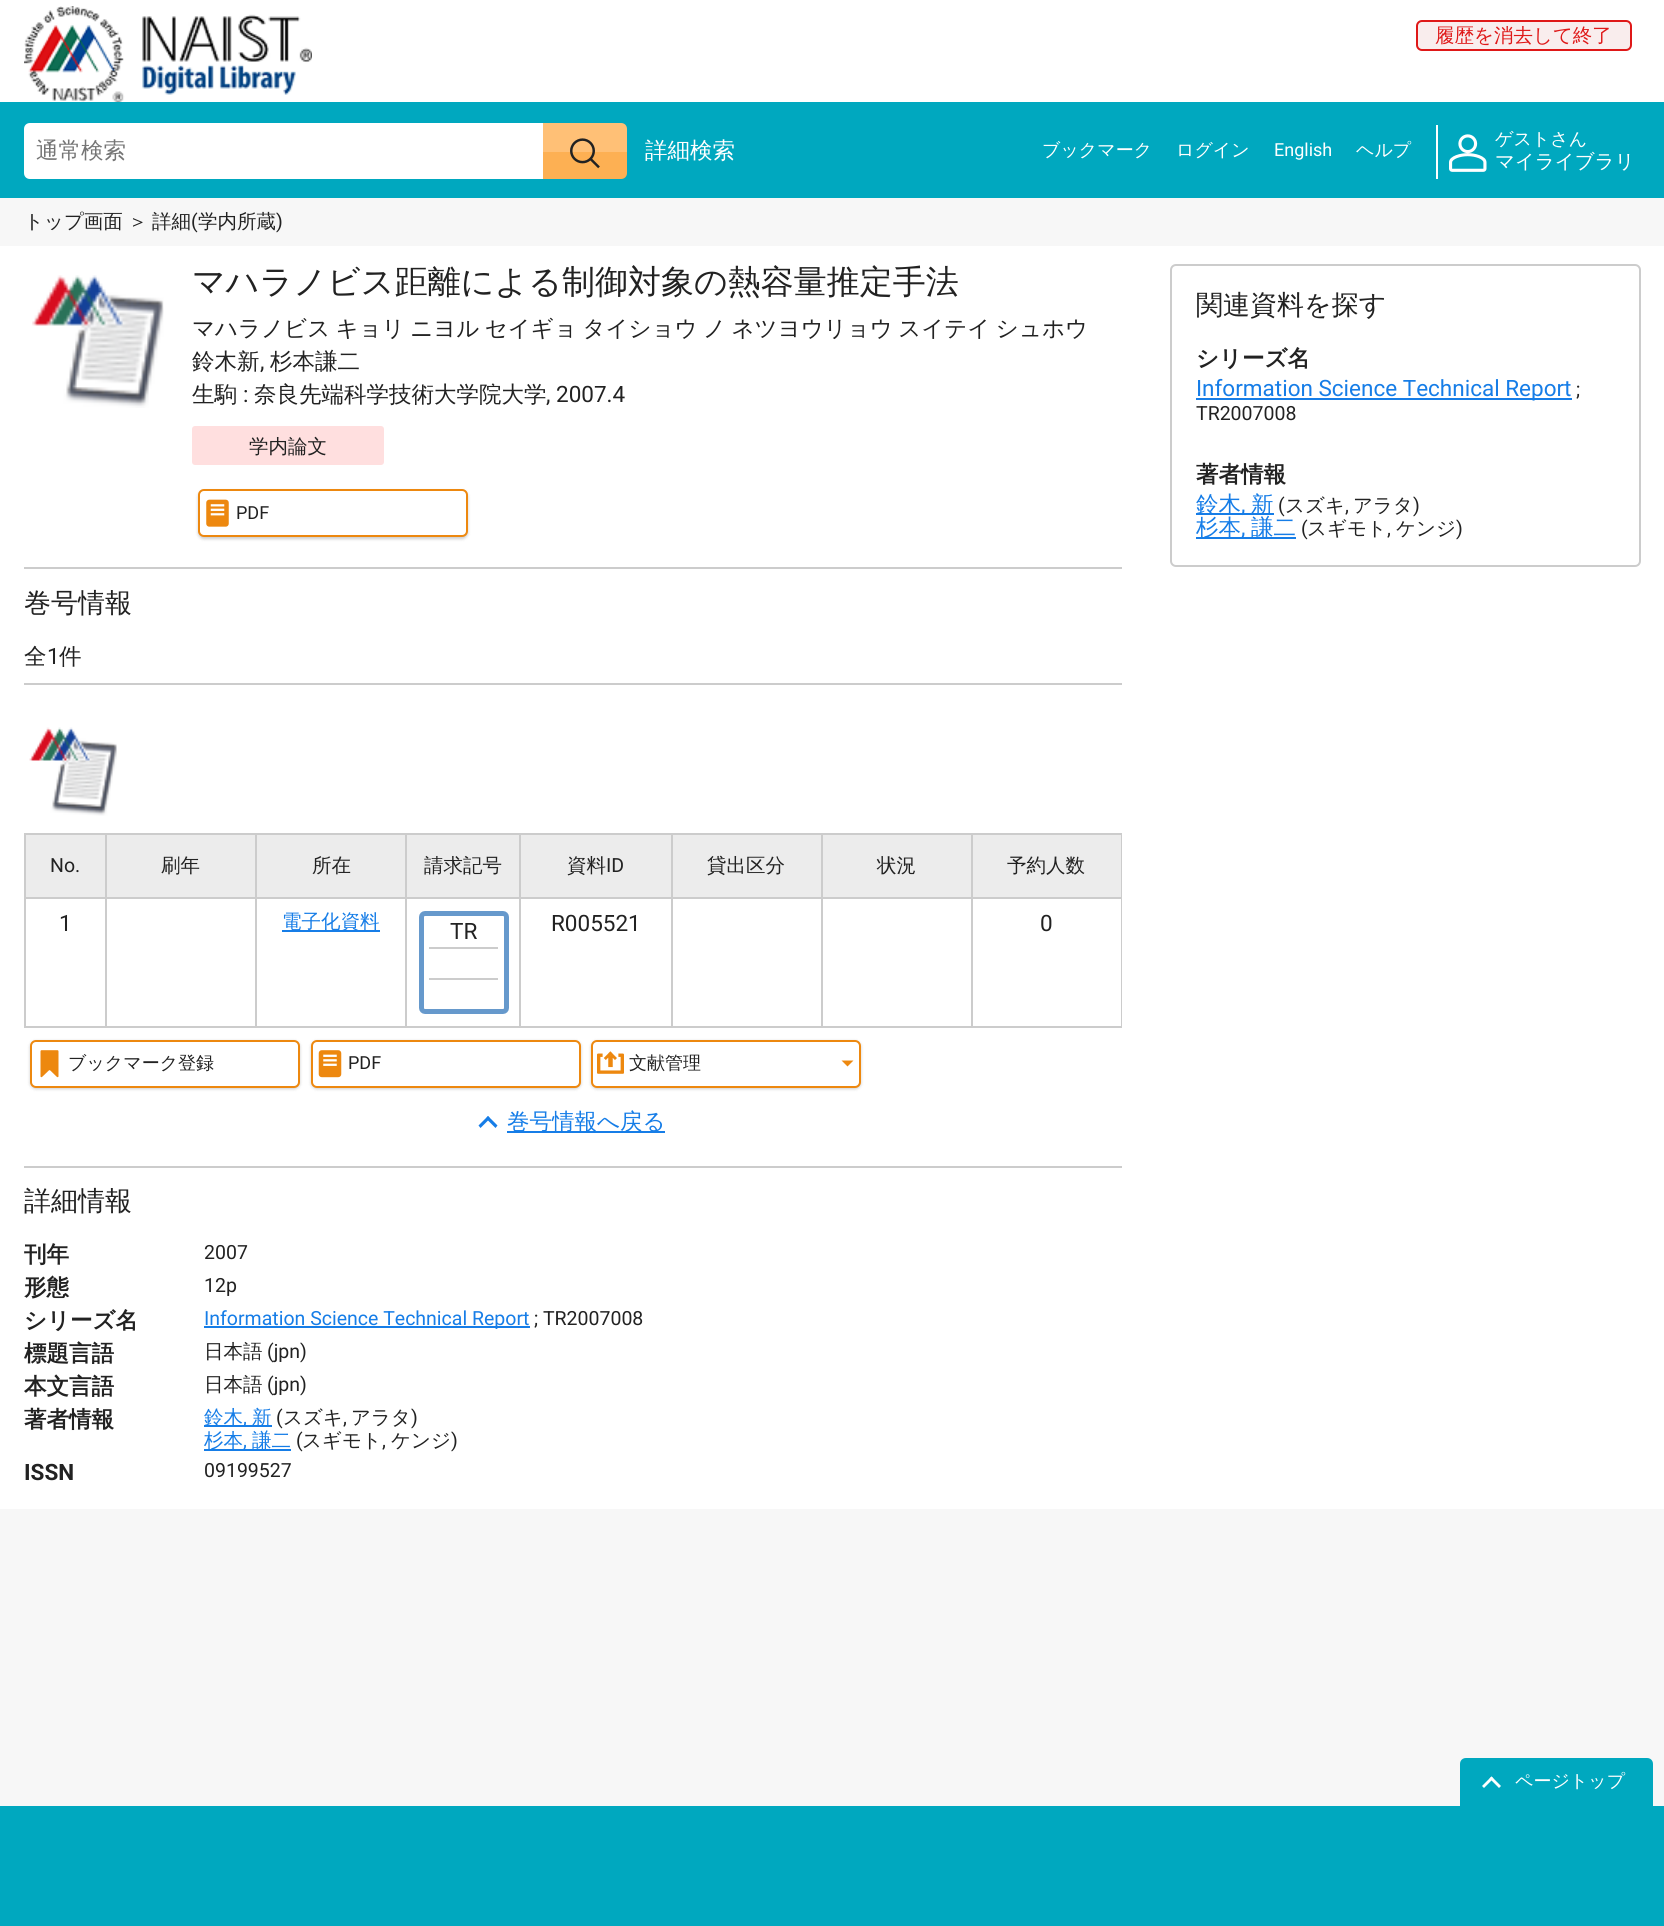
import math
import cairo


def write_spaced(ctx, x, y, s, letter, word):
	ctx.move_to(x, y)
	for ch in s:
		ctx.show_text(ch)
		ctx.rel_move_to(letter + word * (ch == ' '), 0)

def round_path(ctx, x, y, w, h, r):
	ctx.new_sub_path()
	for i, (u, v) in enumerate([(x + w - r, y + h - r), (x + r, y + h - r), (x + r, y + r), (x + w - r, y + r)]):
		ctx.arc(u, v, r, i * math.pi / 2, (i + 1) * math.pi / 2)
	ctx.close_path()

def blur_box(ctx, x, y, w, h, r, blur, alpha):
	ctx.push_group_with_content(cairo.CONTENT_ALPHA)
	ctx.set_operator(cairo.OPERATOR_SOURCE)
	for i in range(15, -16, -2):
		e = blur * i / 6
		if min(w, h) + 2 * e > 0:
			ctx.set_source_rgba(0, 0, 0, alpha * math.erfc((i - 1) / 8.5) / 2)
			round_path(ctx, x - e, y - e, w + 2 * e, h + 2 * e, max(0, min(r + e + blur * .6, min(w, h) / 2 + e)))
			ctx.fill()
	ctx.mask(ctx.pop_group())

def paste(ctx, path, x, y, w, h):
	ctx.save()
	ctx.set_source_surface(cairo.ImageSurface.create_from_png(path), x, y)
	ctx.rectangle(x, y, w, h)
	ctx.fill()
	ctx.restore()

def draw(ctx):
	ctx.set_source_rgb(0.965, 0.965, 0.965)
	ctx.paint()
	ctx.set_source_rgb(1, 1, 1)
	ctx.rectangle(0, 0, 1664, 102)
	ctx.fill()
	paste(ctx, 'media/1.png', 24, 6, 288, 96)
	ctx.set_source_rgb(0.973, 0.929, 0.929)
	round_path(ctx, 1417, 21, 214, 29, 5)
	ctx.fill_preserve()
	ctx.set_source_rgb(0.875, 0.094, 0.094)
	ctx.stroke()
	ctx.select_font_face('WenQuanYi Zen Hei Medium')
	ctx.set_font_size(19.5)
	ctx.move_to(1435, 42)
	ctx.show_text('履歴を消去して終了')
	ctx.set_source_rgb(0, 0.659, 0.749)
	ctx.rectangle(0, 102, 1664, 96)
	ctx.fill()
	ctx.set_source_rgb(1, 1, 1)
	ctx.new_path()
	ctx.move_to(30, 123)
	ctx.line_to(543, 123)
	ctx.line_to(543, 179)
	ctx.line_to(30, 179)
	ctx.curve_to(26.5, 179, 24, 176.5, 24, 173)
	ctx.line_to(24, 129)
	ctx.curve_to(24, 125.5, 26.5, 123, 30, 123)
	ctx.close_path()
	ctx.fill()
	ctx.set_font_size(22.5)
	ctx.set_source_rgb(0.459, 0.459, 0.459)
	ctx.move_to(36, 158)
	ctx.show_text('通常検索')
	ctx.set_source_rgb(1, 0.753, 0.463)
	ctx.new_path()
	ctx.move_to(543, 123)
	ctx.line_to(621, 123)
	ctx.curve_to(624.5, 123, 627, 125.5, 627, 129)
	ctx.line_to(627, 152)
	ctx.line_to(543, 152)
	ctx.close_path()
	ctx.fill()
	ctx.set_source_rgb(0.992, 0.69, 0.325)
	ctx.new_path()
	ctx.move_to(543, 152)
	ctx.line_to(627, 152)
	ctx.line_to(627, 173)
	ctx.curve_to(627, 176.5, 624.5, 179, 621, 179)
	ctx.line_to(543, 179)
	ctx.close_path()
	ctx.fill()
	paste(ctx, 'media/2.png', 570, 138, 30, 31)
	ctx.set_source_rgb(1, 1, 1)
	ctx.move_to(645, 158)
	ctx.show_text('詳細検索')
	ctx.set_font_size(18)
	ctx.move_to(1042, 156)
	ctx.show_text('ブックマーク')
	ctx.move_to(1176, 156)
	ctx.show_text('ログイン')
	ctx.select_font_face('Roboto')
	ctx.move_to(1274, 156)
	ctx.show_text('English')
	ctx.select_font_face('WenQuanYi Zen Hei Medium')
	ctx.move_to(1356, 156)
	ctx.show_text('ヘルプ')
	ctx.rectangle(1436, 125, 2, 54)
	ctx.fill()
	paste(ctx, 'media/3.png', 1449, 134, 38, 38)
	ctx.move_to(1495, 145)
	ctx.show_text('ゲストさん')
	ctx.set_font_size(19.5)
	ctx.move_to(1495, 168)
	ctx.show_text('マイライブラリ')
	ctx.set_source_rgb(0.133, 0.133, 0.133)
	for x, y, s in [
		(24, 228, 'トップ画面'),
		(128, 228, '＞'),
		(152, 228, '詳細'),
	]:
		ctx.move_to(x, y)
		ctx.show_text(s)
	ctx.select_font_face('Roboto')
	ctx.move_to(191, 228)
	ctx.show_text('(')
	ctx.select_font_face('WenQuanYi Zen Hei Medium')
	ctx.move_to(198, 228)
	ctx.show_text('学内所蔵')
	ctx.select_font_face('Roboto')
	ctx.move_to(276, 228)
	ctx.show_text(')')
	ctx.set_source_rgb(1, 1, 1)
	ctx.rectangle(0, 246, 1664, 1263)
	ctx.fill()
	paste(ctx, 'media/4.png', 32, 275, 132, 133)
	ctx.select_font_face('WenQuanYi Zen Hei Medium')
	ctx.set_font_size(33)
	ctx.set_source_rgb(0.133, 0.133, 0.133)
	ctx.move_to(192, 293)
	ctx.show_text('マハラノビス距離による制御対象の熱容量推定手法')
	ctx.set_font_size(22.5)
	write_spaced(ctx, 192, 336, 'マハラノビス キョリ ニヨル セイギョ タイショウ ノ ネツヨウリョウ スイテイ シュホウ', 0, -1.25)
	ctx.move_to(192, 369)
	ctx.show_text('鈴木新')
	ctx.select_font_face('Roboto')
	ctx.move_to(260, 369)
	ctx.show_text(',')
	ctx.select_font_face('WenQuanYi Zen Hei Medium')
	ctx.move_to(270, 369)
	ctx.show_text('杉本謙二')
	ctx.move_to(192, 402)
	ctx.show_text('生駒')
	ctx.select_font_face('Roboto')
	ctx.move_to(243, 402)
	ctx.show_text(':')
	ctx.select_font_face('WenQuanYi Zen Hei Medium')
	ctx.move_to(254, 402)
	ctx.show_text('奈良先端科学技術大学院大学')
	ctx.select_font_face('Roboto')
	ctx.move_to(546, 402)
	ctx.show_text(', 2007.4')
	ctx.set_source_rgb(1, 0.875, 0.875)
	round_path(ctx, 192, 426, 192, 39, 3)
	ctx.fill()
	ctx.select_font_face('WenQuanYi Zen Hei Medium')
	ctx.set_font_size(19.5)
	ctx.set_source_rgb(0.133, 0.133, 0.133)
	ctx.move_to(249, 453)
	ctx.show_text('学内論文')
	ctx.set_source_rgb(0, 0, 0)
	blur_box(ctx, 198, 491, 270, 48, 6, 1.5, 0.2)
	ctx.set_source_rgb(1, 1, 1)
	round_path(ctx, 199, 490, 268, 46, 5)
	ctx.fill_preserve()
	ctx.set_source_rgb(0.929, 0.533, 0.059)
	ctx.stroke()
	paste(ctx, 'media/5.png', 206, 499, 23, 28)
	ctx.select_font_face('Roboto')
	ctx.set_font_size(18)
	ctx.set_source_rgb(0.133, 0.133, 0.133)
	ctx.move_to(236, 519)
	ctx.show_text('PDF')
	ctx.set_source_rgb(0.8, 0.8, 0.8)
	ctx.rectangle(24, 567, 1098, 2)
	ctx.fill()
	ctx.select_font_face('WenQuanYi Zen Hei Medium')
	ctx.set_font_size(27)
	ctx.set_source_rgb(0.133, 0.133, 0.133)
	ctx.move_to(24, 612)
	ctx.show_text('巻号情報')
	ctx.set_source_rgb(0.8, 0.8, 0.8)
	ctx.rectangle(24, 683, 1098, 2)
	ctx.fill()
	ctx.set_font_size(22.5)
	ctx.set_source_rgb(0.133, 0.133, 0.133)
	ctx.move_to(24, 664)
	ctx.show_text('全')
	ctx.select_font_face('Roboto')
	ctx.move_to(47, 664)
	ctx.show_text('1')
	ctx.select_font_face('WenQuanYi Zen Hei Medium')
	ctx.move_to(59, 664)
	ctx.show_text('件')
	paste(ctx, 'media/6.png', 29, 727, 88, 89)
	ctx.set_source_rgb(0.8, 0.8, 0.8)
	ctx.rectangle(24, 833, 1098, 2)
	ctx.rectangle(1121, 833, 1, 195)
	ctx.rectangle(24, 1026, 1098, 2)
	ctx.rectangle(24, 833, 2, 195)
	ctx.fill()
	ctx.set_source_rgb(0.925, 0.925, 0.925)
	ctx.rectangle(26, 835, 79, 62)
	ctx.fill()
	ctx.set_source_rgb(0.8, 0.8, 0.8)
	ctx.rectangle(971, 897, 2, 131)
	ctx.rectangle(971, 897, 151, 2)
	ctx.rectangle(971, 833, 2, 66)
	ctx.rectangle(821, 897, 2, 131)
	ctx.rectangle(821, 897, 151, 2)
	ctx.rectangle(821, 833, 2, 66)
	ctx.rectangle(671, 897, 2, 131)
	ctx.rectangle(671, 897, 151, 2)
	ctx.rectangle(671, 833, 2, 66)
	ctx.rectangle(519, 897, 2, 131)
	ctx.rectangle(519, 897, 153, 2)
	ctx.rectangle(519, 833, 2, 66)
	ctx.rectangle(405, 897, 2, 131)
	ctx.rectangle(405, 897, 116, 2)
	ctx.rectangle(405, 833, 2, 66)
	ctx.rectangle(255, 897, 2, 131)
	ctx.rectangle(255, 897, 152, 2)
	ctx.rectangle(255, 833, 2, 66)
	ctx.rectangle(105, 897, 2, 131)
	ctx.rectangle(105, 897, 152, 2)
	ctx.rectangle(105, 833, 2, 66)
	ctx.rectangle(24, 897, 83, 2)
	ctx.fill()
	ctx.select_font_face('Roboto')
	ctx.set_font_size(19.5)
	ctx.set_source_rgb(0.133, 0.133, 0.133)
	ctx.move_to(50, 872)
	ctx.show_text('No.')
	ctx.set_source_rgb(0.925, 0.925, 0.925)
	ctx.rectangle(107, 835, 148, 62)
	ctx.fill()
	ctx.select_font_face('WenQuanYi Zen Hei Medium')
	ctx.set_source_rgb(0.133, 0.133, 0.133)
	ctx.move_to(161, 872)
	ctx.show_text('刷年')
	ctx.set_source_rgb(0.925, 0.925, 0.925)
	ctx.rectangle(257, 835, 148, 62)
	ctx.fill()
	ctx.set_source_rgb(0.133, 0.133, 0.133)
	ctx.move_to(312, 872)
	ctx.show_text('所在')
	ctx.set_source_rgb(0.925, 0.925, 0.925)
	ctx.rectangle(407, 835, 112, 62)
	ctx.fill()
	ctx.set_source_rgb(0.133, 0.133, 0.133)
	ctx.move_to(424, 872)
	ctx.show_text('請求記号')
	ctx.set_source_rgb(0.925, 0.925, 0.925)
	ctx.rectangle(521, 835, 150, 62)
	ctx.fill()
	ctx.set_source_rgb(0.133, 0.133, 0.133)
	ctx.move_to(567, 872)
	ctx.show_text('資料')
	ctx.select_font_face('Roboto')
	ctx.move_to(606, 872)
	ctx.show_text('ID')
	ctx.set_source_rgb(0.925, 0.925, 0.925)
	ctx.rectangle(673, 835, 148, 62)
	ctx.fill()
	ctx.select_font_face('WenQuanYi Zen Hei Medium')
	ctx.set_source_rgb(0.133, 0.133, 0.133)
	ctx.move_to(707, 872)
	ctx.show_text('貸出区分')
	ctx.set_source_rgb(0.925, 0.925, 0.925)
	ctx.rectangle(823, 835, 148, 62)
	ctx.fill()
	ctx.set_source_rgb(0.133, 0.133, 0.133)
	ctx.move_to(877, 872)
	ctx.show_text('状況')
	ctx.set_source_rgb(0.925, 0.925, 0.925)
	ctx.rectangle(973, 835, 148, 62)
	ctx.fill()
	ctx.set_source_rgb(0.133, 0.133, 0.133)
	ctx.move_to(1007, 872)
	ctx.show_text('予約人数')
	ctx.select_font_face('Roboto')
	ctx.set_font_size(22.5)
	ctx.move_to(59, 931)
	ctx.show_text('1')
	ctx.set_source_rgb(0.086, 0.49, 0.906)
	ctx.rectangle(282, 930, 98, 2)
	ctx.fill()
	ctx.select_font_face('WenQuanYi Zen Hei Medium')
	ctx.set_font_size(19.5)
	ctx.move_to(282, 928)
	ctx.show_text('電子化資料')
	round_path(ctx, 421.5, 913.5, 85, 98, 3.5)
	ctx.set_source_rgb(0.4, 0.6, 0.8)
	ctx.set_line_width(5)
	ctx.stroke()
	ctx.select_font_face('Roboto')
	ctx.set_font_size(22.5)
	ctx.set_source_rgb(0.133, 0.133, 0.133)
	ctx.move_to(450, 939)
	ctx.show_text('TR')
	ctx.set_source_rgb(0.8, 0.8, 0.8)
	ctx.rectangle(429, 947, 69, 2)
	ctx.fill()
	ctx.rectangle(429, 978, 69, 2)
	ctx.fill()
	ctx.set_source_rgb(0.133, 0.133, 0.133)
	ctx.move_to(551, 931)
	ctx.show_text('R005521')
	ctx.move_to(1040, 931)
	ctx.show_text('0')
	ctx.set_source_rgb(0, 0, 0)
	blur_box(ctx, 30, 1041, 270, 48, 6, 1.5, 0.2)
	ctx.set_source_rgb(1, 1, 1)
	round_path(ctx, 31, 1041, 268, 46, 5)
	ctx.fill_preserve()
	ctx.set_source_rgb(0.929, 0.533, 0.059)
	ctx.set_line_width(2)
	ctx.stroke()
	paste(ctx, 'media/7.png', 40, 1050, 19, 28)
	ctx.select_font_face('WenQuanYi Zen Hei Medium')
	ctx.set_font_size(18)
	ctx.set_source_rgb(0.133, 0.133, 0.133)
	ctx.move_to(68, 1069)
	ctx.show_text('ブックマーク登録')
	ctx.set_source_rgb(0, 0, 0)
	blur_box(ctx, 311, 1041, 270, 48, 6, 1.5, 0.2)
	ctx.set_source_rgb(1, 1, 1)
	round_path(ctx, 312, 1041, 268, 46, 5)
	ctx.fill_preserve()
	ctx.set_source_rgb(0.929, 0.533, 0.059)
	ctx.stroke()
	paste(ctx, 'media/8.png', 318, 1050, 24, 28)
	ctx.select_font_face('Roboto')
	ctx.set_source_rgb(0.133, 0.133, 0.133)
	ctx.move_to(348, 1069)
	ctx.show_text('PDF')
	ctx.set_source_rgb(0, 0, 0)
	blur_box(ctx, 591, 1041, 270, 48, 6, 1.5, 0.2)
	ctx.set_source_rgb(1, 1, 1)
	round_path(ctx, 592, 1041, 268, 46, 5)
	ctx.fill_preserve()
	ctx.set_source_rgb(0.929, 0.533, 0.059)
	ctx.stroke()
	paste(ctx, 'media/9.png', 597, 1051, 27, 23)
	ctx.select_font_face('WenQuanYi Zen Hei Medium')
	ctx.set_source_rgb(0.133, 0.133, 0.133)
	ctx.move_to(629, 1069)
	ctx.show_text('文献管理')
	ctx.set_source_rgb(0.929, 0.533, 0.059)
	ctx.new_path()
	ctx.move_to(841.5, 1060.5)
	ctx.line_to(853.5, 1060.5)
	ctx.line_to(847.5, 1066.5)
	ctx.close_path()
	ctx.fill()
	ctx.set_source_rgb(0.086, 0.49, 0.906)
	ctx.new_path()
	ctx.move_to(478.5, 1125.5)
	ctx.line_to(488, 1116)
	ctx.line_to(490, 1118.5)
	ctx.line_to(480.5, 1128)
	ctx.close_path()
	ctx.fill()
	ctx.new_path()
	ctx.move_to(486, 1118.5)
	ctx.line_to(488, 1116)
	ctx.line_to(497.5, 1125.5)
	ctx.line_to(495.5, 1128)
	ctx.close_path()
	ctx.fill()
	ctx.rectangle(507, 1131, 158, 2)
	ctx.fill()
	ctx.set_font_size(22.5)
	ctx.move_to(507, 1129)
	ctx.show_text('巻号情報へ戻る')
	ctx.set_source_rgb(0.8, 0.8, 0.8)
	ctx.rectangle(24, 1166, 1098, 2)
	ctx.fill()
	ctx.set_font_size(27)
	ctx.set_source_rgb(0.133, 0.133, 0.133)
	ctx.move_to(24, 1210)
	ctx.show_text('詳細情報')
	ctx.select_font_face('WenQuanYi Zen Hei', cairo.FONT_SLANT_NORMAL, cairo.FONT_WEIGHT_BOLD)
	ctx.set_font_size(22.5)
	ctx.move_to(24, 1262)
	ctx.show_text('刊年')
	ctx.select_font_face('Roboto')
	ctx.set_font_size(19.5)
	ctx.move_to(204, 1259)
	ctx.show_text('2007')
	ctx.select_font_face('WenQuanYi Zen Hei', cairo.FONT_SLANT_NORMAL, cairo.FONT_WEIGHT_BOLD)
	ctx.set_font_size(22.5)
	ctx.move_to(24, 1295)
	ctx.show_text('形態')
	ctx.select_font_face('Roboto')
	ctx.set_font_size(19.5)
	ctx.move_to(204, 1292)
	ctx.show_text('12p')
	ctx.select_font_face('WenQuanYi Zen Hei', cairo.FONT_SLANT_NORMAL, cairo.FONT_WEIGHT_BOLD)
	ctx.set_font_size(22.5)
	ctx.move_to(24, 1328)
	ctx.show_text('シリーズ名')
	ctx.set_source_rgb(0.086, 0.49, 0.906)
	ctx.rectangle(204, 1326, 326, 2)
	ctx.fill()
	ctx.select_font_face('Roboto')
	ctx.set_font_size(19.5)
	ctx.move_to(204, 1325)
	ctx.show_text('Information Science Technical Report')
	ctx.set_source_rgb(0.133, 0.133, 0.133)
	ctx.move_to(534, 1325)
	ctx.show_text('; TR2007008')
	ctx.select_font_face('WenQuanYi Zen Hei', cairo.FONT_SLANT_NORMAL, cairo.FONT_WEIGHT_BOLD)
	ctx.set_font_size(22.5)
	ctx.move_to(24, 1361)
	ctx.show_text('標題言語')
	ctx.select_font_face('WenQuanYi Zen Hei Medium')
	ctx.set_font_size(19.5)
	ctx.move_to(204, 1358)
	ctx.show_text('日本語')
	ctx.select_font_face('Roboto')
	ctx.move_to(267, 1358)
	ctx.show_text('(jpn)')
	ctx.select_font_face('WenQuanYi Zen Hei', cairo.FONT_SLANT_NORMAL, cairo.FONT_WEIGHT_BOLD)
	ctx.set_font_size(22.5)
	ctx.move_to(24, 1394)
	ctx.show_text('本文言語')
	ctx.select_font_face('WenQuanYi Zen Hei Medium')
	ctx.set_font_size(19.5)
	ctx.move_to(204, 1391)
	ctx.show_text('日本語')
	ctx.select_font_face('Roboto')
	ctx.move_to(267, 1391)
	ctx.show_text('(jpn)')
	ctx.select_font_face('WenQuanYi Zen Hei', cairo.FONT_SLANT_NORMAL, cairo.FONT_WEIGHT_BOLD)
	ctx.set_font_size(22.5)
	ctx.move_to(24, 1427)
	ctx.show_text('著者情報')
	ctx.set_source_rgb(0.086, 0.49, 0.906)
	ctx.rectangle(204, 1425, 68, 2)
	ctx.fill()
	ctx.select_font_face('WenQuanYi Zen Hei Medium')
	ctx.set_font_size(19.5)
	ctx.move_to(204, 1424)
	ctx.show_text('鈴木')
	ctx.select_font_face('Roboto')
	ctx.move_to(243, 1424)
	ctx.show_text(',')
	ctx.select_font_face('WenQuanYi Zen Hei Medium')
	ctx.move_to(252, 1424)
	ctx.show_text('新')
	ctx.select_font_face('Roboto')
	ctx.set_source_rgb(0.133, 0.133, 0.133)
	ctx.move_to(276, 1424)
	ctx.show_text('(')
	ctx.select_font_face('WenQuanYi Zen Hei Medium')
	ctx.move_to(283, 1424)
	ctx.show_text('スズキ')
	ctx.select_font_face('Roboto')
	ctx.move_to(343, 1424)
	ctx.show_text(',')
	ctx.select_font_face('WenQuanYi Zen Hei Medium')
	ctx.move_to(351, 1424)
	ctx.show_text('アラタ')
	ctx.select_font_face('Roboto')
	ctx.move_to(411, 1424)
	ctx.show_text(')')
	ctx.set_source_rgb(0.086, 0.49, 0.906)
	ctx.rectangle(204, 1449, 87, 2)
	ctx.fill()
	ctx.select_font_face('WenQuanYi Zen Hei Medium')
	ctx.move_to(204, 1447)
	ctx.show_text('杉本')
	ctx.select_font_face('Roboto')
	ctx.move_to(243, 1447)
	ctx.show_text(',')
	ctx.select_font_face('WenQuanYi Zen Hei Medium')
	ctx.move_to(252, 1447)
	ctx.show_text('謙二')
	ctx.select_font_face('Roboto')
	ctx.set_source_rgb(0.133, 0.133, 0.133)
	ctx.move_to(296, 1447)
	ctx.show_text('(')
	ctx.select_font_face('WenQuanYi Zen Hei Medium')
	ctx.move_to(302, 1447)
	ctx.show_text('スギモト')
	ctx.select_font_face('Roboto')
	ctx.move_to(382, 1447)
	ctx.show_text(',')
	ctx.select_font_face('WenQuanYi Zen Hei Medium')
	ctx.move_to(391, 1447)
	ctx.show_text('ケンジ')
	ctx.select_font_face('Roboto')
	ctx.move_to(451, 1447)
	ctx.show_text(')')
	ctx.select_font_face('Roboto', cairo.FONT_SLANT_NORMAL, cairo.FONT_WEIGHT_BOLD)
	ctx.set_font_size(22.5)
	ctx.move_to(24, 1480)
	ctx.show_text('ISSN')
	ctx.select_font_face('Roboto')
	ctx.set_font_size(19.5)
	ctx.move_to(204, 1477)
	ctx.show_text('09199527')
	round_path(ctx, 1171, 265, 469, 301, 5)
	ctx.set_source_rgb(0.8, 0.8, 0.8)
	ctx.stroke()
	ctx.select_font_face('WenQuanYi Zen Hei Medium')
	ctx.set_font_size(27)
	ctx.set_source_rgb(0.133, 0.133, 0.133)
	ctx.move_to(1196, 314)
	ctx.show_text('関連資料を探す')
	ctx.select_font_face('WenQuanYi Zen Hei', cairo.FONT_SLANT_NORMAL, cairo.FONT_WEIGHT_BOLD)
	ctx.set_font_size(22.5)
	ctx.move_to(1196, 366)
	ctx.show_text('シリーズ名')
	ctx.set_source_rgb(0.086, 0.49, 0.906)
	ctx.rectangle(1196, 398, 376, 2)
	ctx.fill()
	ctx.select_font_face('Roboto')
	ctx.move_to(1196, 396)
	ctx.show_text('Information Science Technical Report')
	ctx.set_font_size(19.5)
	ctx.set_source_rgb(0.133, 0.133, 0.133)
	ctx.move_to(1576, 396)
	ctx.show_text(';')
	ctx.move_to(1196, 420)
	ctx.show_text('TR2007008')
	ctx.select_font_face('WenQuanYi Zen Hei', cairo.FONT_SLANT_NORMAL, cairo.FONT_WEIGHT_BOLD)
	ctx.set_font_size(22.5)
	ctx.move_to(1196, 482)
	ctx.show_text('著者情報')
	ctx.set_source_rgb(0.086, 0.49, 0.906)
	ctx.rectangle(1196, 513, 78, 2)
	ctx.fill()
	ctx.select_font_face('WenQuanYi Zen Hei Medium')
	ctx.move_to(1196, 512)
	ctx.show_text('鈴木')
	ctx.select_font_face('Roboto')
	ctx.move_to(1241, 512)
	ctx.show_text(',')
	ctx.select_font_face('WenQuanYi Zen Hei Medium')
	ctx.move_to(1251, 512)
	ctx.show_text('新')
	ctx.select_font_face('Roboto')
	ctx.set_font_size(19.5)
	ctx.set_source_rgb(0.133, 0.133, 0.133)
	ctx.move_to(1278, 512)
	ctx.show_text('(')
	ctx.select_font_face('WenQuanYi Zen Hei Medium')
	ctx.move_to(1285, 512)
	ctx.show_text('スズキ')
	ctx.select_font_face('Roboto')
	ctx.move_to(1345, 512)
	ctx.show_text(',')
	ctx.select_font_face('WenQuanYi Zen Hei Medium')
	ctx.move_to(1353, 512)
	ctx.show_text('アラタ')
	ctx.select_font_face('Roboto')
	ctx.move_to(1413, 512)
	ctx.show_text(')')
	ctx.set_source_rgb(0.086, 0.49, 0.906)
	ctx.rectangle(1196, 537, 100, 2)
	ctx.fill()
	ctx.select_font_face('WenQuanYi Zen Hei Medium')
	ctx.set_font_size(22.5)
	ctx.move_to(1196, 535)
	ctx.show_text('杉本')
	ctx.select_font_face('Roboto')
	ctx.move_to(1241, 535)
	ctx.show_text(',')
	ctx.select_font_face('WenQuanYi Zen Hei Medium')
	ctx.move_to(1251, 535)
	ctx.show_text('謙二')
	ctx.select_font_face('Roboto')
	ctx.set_font_size(19.5)
	ctx.set_source_rgb(0.133, 0.133, 0.133)
	ctx.move_to(1301, 535)
	ctx.show_text('(')
	ctx.select_font_face('WenQuanYi Zen Hei Medium')
	ctx.move_to(1307, 535)
	ctx.show_text('スギモト')
	ctx.select_font_face('Roboto')
	ctx.move_to(1387, 535)
	ctx.show_text(',')
	ctx.select_font_face('WenQuanYi Zen Hei Medium')
	ctx.move_to(1396, 535)
	ctx.show_text('ケンジ')
	ctx.select_font_face('Roboto')
	ctx.move_to(1456, 535)
	ctx.show_text(')')
	ctx.set_source_rgb(0, 0.659, 0.749)
	ctx.rectangle(0, 1806, 1664, 120)
	ctx.fill()
	ctx.new_path()
	ctx.move_to(1466, 1758)
	ctx.line_to(1647, 1758)
	ctx.curve_to(1650.5, 1758, 1653, 1760.5, 1653, 1764)
	ctx.line_to(1653, 1806)
	ctx.line_to(1460, 1806)
	ctx.line_to(1460, 1764)
	ctx.curve_to(1460, 1760.5, 1462.5, 1758, 1466, 1758)
	ctx.close_path()
	ctx.fill()
	ctx.set_source_rgb(1, 1, 1)
	ctx.new_path()
	ctx.move_to(1482, 1786)
	ctx.line_to(1491.5, 1776.5)
	ctx.line_to(1493.5, 1778.5)
	ctx.line_to(1484, 1788)
	ctx.close_path()
	ctx.fill()
	ctx.new_path()
	ctx.move_to(1489.5, 1778.5)
	ctx.line_to(1491.5, 1776.5)
	ctx.line_to(1501, 1786)
	ctx.line_to(1499, 1788)
	ctx.close_path()
	ctx.fill()
	ctx.select_font_face('WenQuanYi Zen Hei Medium')
	ctx.set_font_size(18)
	ctx.move_to(1515, 1787)
	ctx.show_text('ページトップ')


surface = cairo.ImageSurface(cairo.FORMAT_RGB24, 1664, 1926)
ctx = cairo.Context(surface)
options = cairo.FontOptions()
options.set_hint_metrics(cairo.HINT_METRICS_OFF)
options.set_hint_style(cairo.HINT_STYLE_NONE)
ctx.set_font_options(options)
ctx.set_miter_limit(4)
draw(ctx)
surface.write_to_png('image.png')
